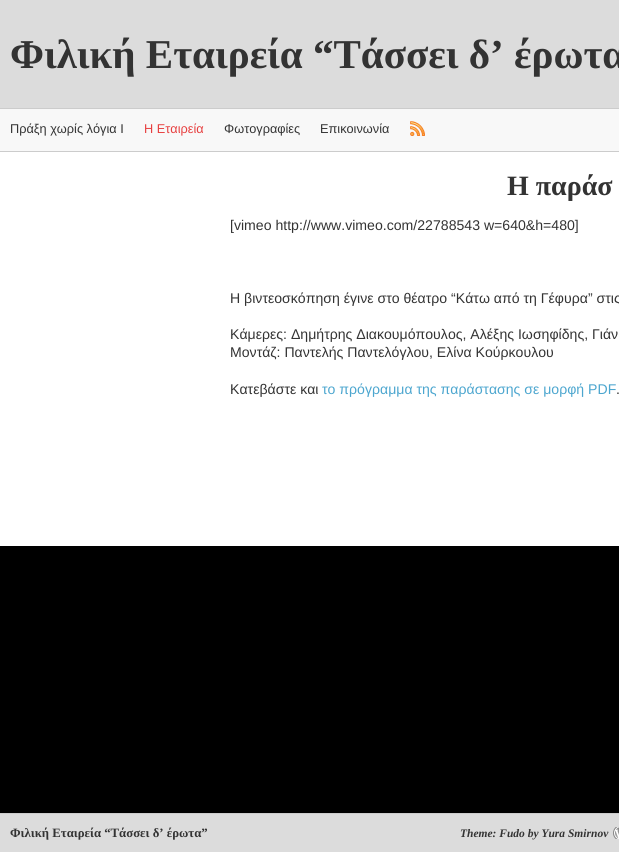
import math
import cairo


def paste(ctx, path, x, y, w, h):
	ctx.save()
	ctx.set_source_surface(cairo.ImageSurface.create_from_png(path), x, y)
	ctx.rectangle(x, y, w, h)
	ctx.fill()
	ctx.restore()

def draw(ctx):
	ctx.set_source_rgb(0, 0, 0)
	ctx.paint()
	ctx.set_source_rgb(0.863, 0.863, 0.863)
	ctx.rectangle(0, 0, 619, 108)
	ctx.fill()
	ctx.select_font_face('Liberation Serif', cairo.FONT_SLANT_NORMAL, cairo.FONT_WEIGHT_BOLD)
	ctx.set_font_size(41)
	ctx.set_source_rgb(0.2, 0.2, 0.2)
	ctx.move_to(10, 68)
	ctx.show_text('Φιλική Εταιρεία “Τάσσει δ’ έρωτα')
	ctx.set_source_rgb(0.969, 0.969, 0.969)
	ctx.rectangle(0, 109, 619, 42)
	ctx.fill()
	ctx.set_source_rgb(0.8, 0.8, 0.8)
	ctx.rectangle(0, 108, 619, 1)
	ctx.rectangle(0, 151, 619, 1)
	ctx.fill()
	ctx.select_font_face('Liberation Sans')
	ctx.set_font_size(12.75)
	ctx.set_source_rgb(0.2, 0.2, 0.2)
	ctx.move_to(10, 133)
	ctx.show_text('Πράξη χωρίς λόγια Ι')
	ctx.set_source_rgb(0.906, 0.251, 0.251)
	ctx.move_to(144, 133)
	ctx.show_text('Η Εταιρεία')
	ctx.set_source_rgb(0.2, 0.2, 0.2)
	ctx.move_to(224, 133)
	ctx.show_text('Φωτογραφίες')
	ctx.move_to(320, 133)
	ctx.show_text('Επικοινωνία')
	paste(ctx, 'media/1.png', 410, 121, 15, 15)
	ctx.set_source_rgb(1, 1, 1)
	ctx.rectangle(0, 152, 619, 394)
	ctx.fill()
	ctx.select_font_face('Liberation Serif', cairo.FONT_SLANT_NORMAL, cairo.FONT_WEIGHT_BOLD)
	ctx.set_font_size(28)
	ctx.set_source_rgb(0.2, 0.2, 0.2)
	ctx.move_to(507, 195)
	ctx.show_text('Η παράσ')
	ctx.select_font_face('Liberation Sans')
	ctx.set_font_size(14.1)
	for x, y, s in [
		(230, 230, '[vimeo http://www.vimeo.com/22788543 w=640&h=480]'),
		(230, 303, 'Η βιντεοσκόπηση έγινε στο θέατρο “Κάτω από τη Γέφυρα” στις'),
		(230, 339, 'Κάμερες: Δημήτρης Διακουμόπουλος, Αλέξης Ιωσηφίδης, Γιάν'),
		(230, 357, 'Μοντάζ: Παντελής Παντελόγλου, Ελίνα Κούρκουλου'),
		(230, 394, 'Κατεβάστε και'),
	]:
		ctx.move_to(x, y)
		ctx.show_text(s)
	ctx.set_source_rgb(0.298, 0.651, 0.812)
	ctx.move_to(322, 394)
	ctx.show_text('το πρόγραμμα της παράστασης σε μορφή PDF')
	ctx.set_source_rgb(0.2, 0.2, 0.2)
	ctx.move_to(616, 394)
	ctx.show_text('.')
	ctx.set_source_rgb(0.863, 0.863, 0.863)
	ctx.rectangle(0, 814, 619, 38)
	ctx.fill()
	ctx.set_source_rgb(0.8, 0.8, 0.8)
	ctx.rectangle(0, 813, 619, 1)
	ctx.fill()
	ctx.select_font_face('Liberation Serif', cairo.FONT_SLANT_NORMAL, cairo.FONT_WEIGHT_BOLD)
	ctx.set_font_size(12.75)
	ctx.set_source_rgb(0.2, 0.2, 0.2)
	ctx.move_to(10, 837)
	ctx.show_text('Φιλική Εταιρεία “Τάσσει δ’ έρωτα”')
	ctx.select_font_face('Liberation Serif', cairo.FONT_SLANT_ITALIC, cairo.FONT_WEIGHT_BOLD)
	ctx.set_font_size(11.5)
	ctx.move_to(460, 837)
	ctx.show_text('Theme: Fudo by Yura Smirnov')
	paste(ctx, 'media/2.png', 613, 827, 6, 12)


surface = cairo.ImageSurface(cairo.FORMAT_RGB24, 619, 852)
ctx = cairo.Context(surface)
options = cairo.FontOptions()
options.set_hint_metrics(cairo.HINT_METRICS_OFF)
options.set_hint_style(cairo.HINT_STYLE_NONE)
ctx.set_font_options(options)
ctx.set_miter_limit(4)
draw(ctx)
surface.write_to_png('image.png')
